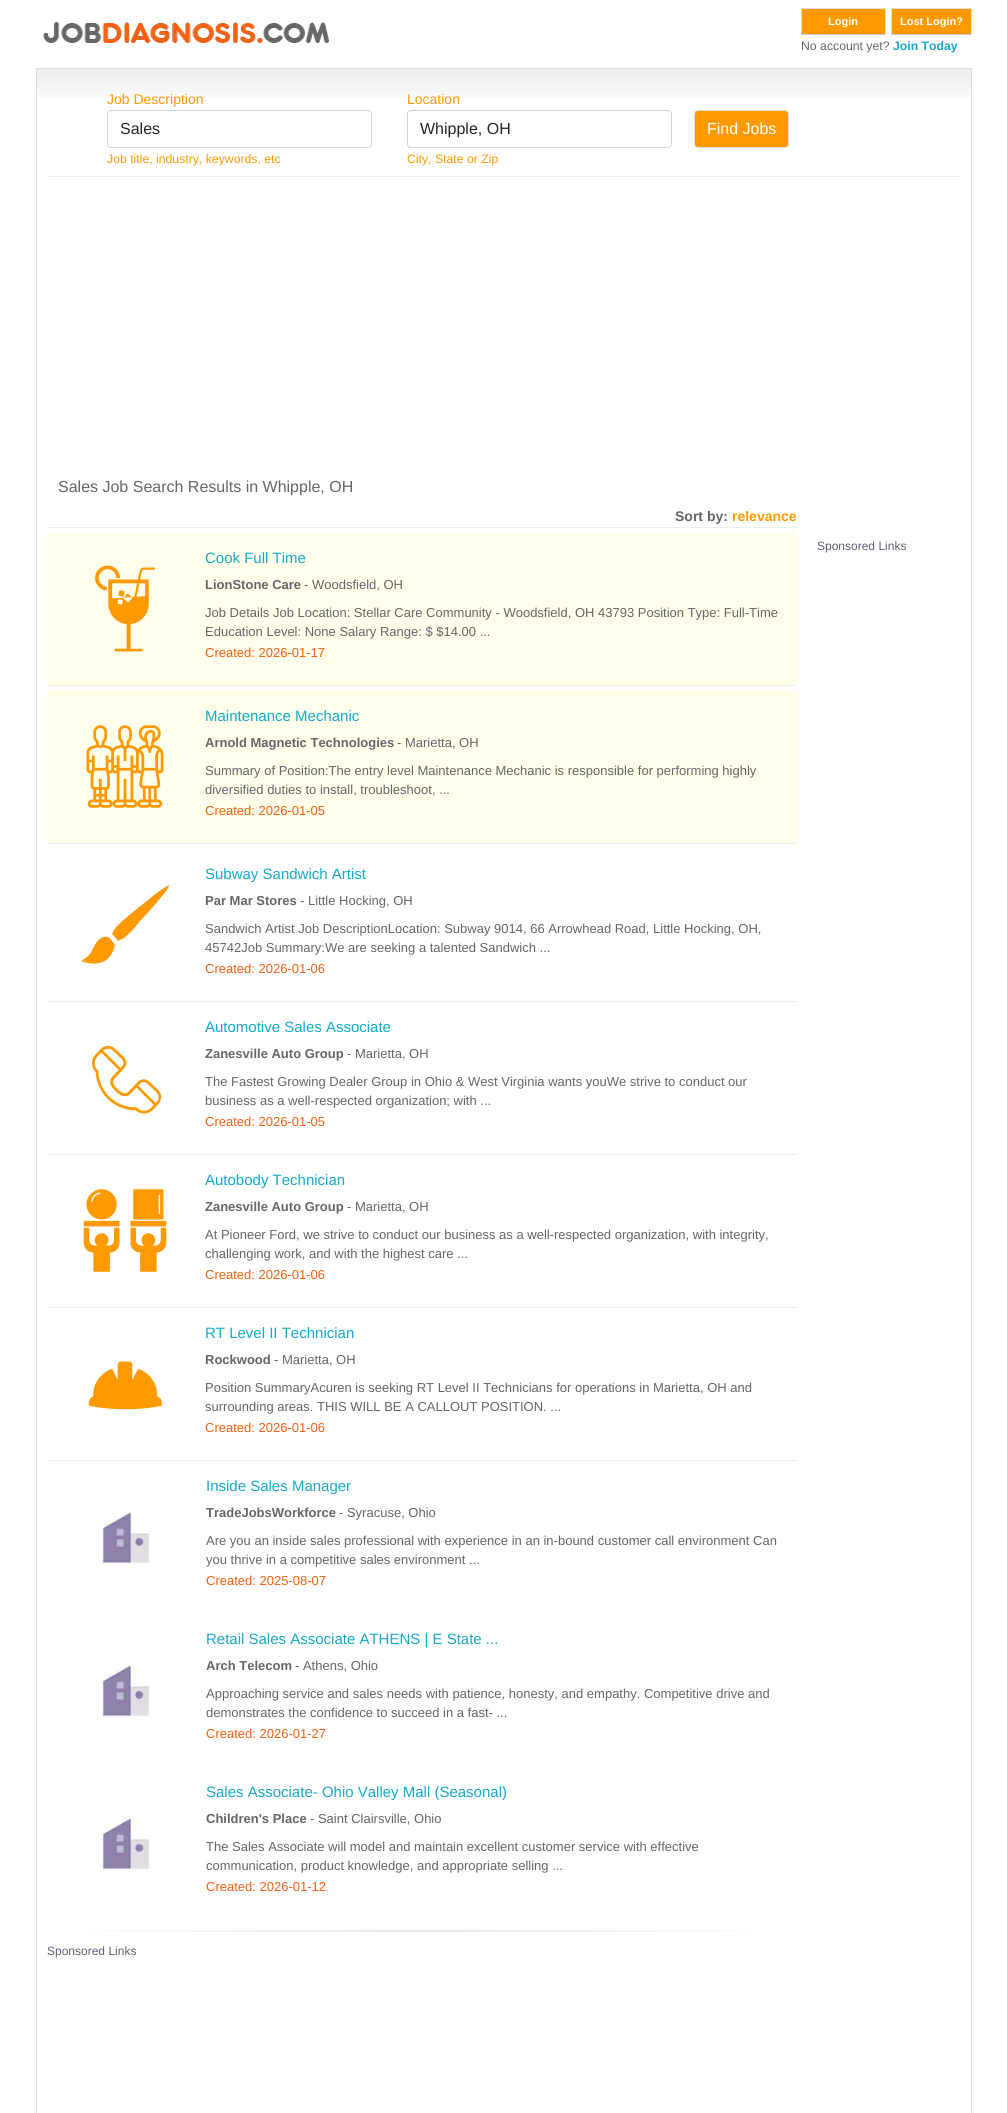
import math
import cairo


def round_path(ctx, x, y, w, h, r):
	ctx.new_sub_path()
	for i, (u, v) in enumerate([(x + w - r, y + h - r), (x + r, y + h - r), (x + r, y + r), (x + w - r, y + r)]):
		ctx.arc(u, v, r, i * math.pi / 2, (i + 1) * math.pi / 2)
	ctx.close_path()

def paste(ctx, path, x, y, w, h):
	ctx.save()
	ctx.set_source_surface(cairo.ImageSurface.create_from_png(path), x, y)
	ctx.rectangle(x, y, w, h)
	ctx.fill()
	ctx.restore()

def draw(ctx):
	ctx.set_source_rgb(1, 1, 1)
	ctx.paint()
	paste(ctx, 'media/1.png', 43, 22, 287, 21)
	ctx.set_source_rgb(1, 0.6, 0)
	ctx.rectangle(802, 9, 83, 25)
	ctx.fill()
	ctx.set_source_rgb(0.867, 0.867, 0.867)
	ctx.rectangle(801, 8, 85, 1)
	ctx.rectangle(885, 8, 1, 27)
	ctx.fill()
	ctx.set_source_rgb(0.8, 0.8, 0.8)
	ctx.rectangle(801, 34, 85, 1)
	ctx.fill()
	ctx.set_source_rgb(0.867, 0.867, 0.867)
	ctx.rectangle(801, 8, 1, 27)
	ctx.fill()
	ctx.select_font_face('Liberation Sans', cairo.FONT_SLANT_NORMAL, cairo.FONT_WEIGHT_BOLD)
	ctx.set_font_size(11)
	ctx.set_source_rgb(1, 1, 1)
	ctx.move_to(828, 25)
	ctx.show_text('Login')
	ctx.set_source_rgb(1, 0.6, 0)
	ctx.rectangle(892, 9, 79, 25)
	ctx.fill()
	ctx.set_source_rgb(0.867, 0.867, 0.867)
	ctx.rectangle(891, 8, 81, 1)
	ctx.rectangle(971, 8, 1, 27)
	ctx.fill()
	ctx.set_source_rgb(0.8, 0.8, 0.8)
	ctx.rectangle(891, 34, 81, 1)
	ctx.fill()
	ctx.set_source_rgb(0.867, 0.867, 0.867)
	ctx.rectangle(891, 8, 1, 27)
	ctx.fill()
	ctx.set_source_rgb(1, 1, 1)
	ctx.move_to(900, 25)
	ctx.show_text('Lost Login?')
	ctx.select_font_face('Liberation Sans')
	ctx.set_font_size(12.25)
	ctx.set_source_rgb(0.4, 0.4, 0.4)
	ctx.move_to(801, 50)
	ctx.show_text('No account yet?')
	ctx.select_font_face('Liberation Sans', cairo.FONT_SLANT_NORMAL, cairo.FONT_WEIGHT_BOLD)
	ctx.set_source_rgb(0.086, 0.663, 0.804)
	ctx.move_to(893, 50)
	ctx.show_text('Join Today')
	paste(ctx, 'media/2.png', 37, 69, 934, 29)
	ctx.rectangle(36.5, 68.5, 935, 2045)
	ctx.set_source_rgb(0.851, 0.871, 0.875)
	ctx.set_line_width(1)
	ctx.stroke()
	ctx.select_font_face('Liberation Sans')
	ctx.set_font_size(14)
	ctx.set_source_rgb(1, 0.6, 0)
	ctx.move_to(107, 104)
	ctx.show_text('Job Description')
	round_path(ctx, 107.5, 110.5, 264, 37, 3.5)
	ctx.set_source_rgb(0.808, 0.831, 0.855)
	ctx.stroke()
	ctx.set_font_size(16)
	ctx.set_source_rgb(0.129, 0.145, 0.161)
	ctx.move_to(120, 134)
	ctx.show_text('Sales')
	ctx.set_font_size(12.25)
	ctx.set_source_rgb(1, 0.6, 0)
	ctx.move_to(107, 163)
	ctx.show_text('Job title, industry, keywords, etc')
	ctx.set_font_size(14)
	ctx.move_to(407, 104)
	ctx.show_text('Location')
	round_path(ctx, 407.5, 110.5, 264, 37, 3.5)
	ctx.set_source_rgb(0.808, 0.831, 0.855)
	ctx.stroke()
	ctx.set_font_size(16)
	ctx.set_source_rgb(0.129, 0.145, 0.161)
	ctx.move_to(420, 134)
	ctx.show_text('Whipple, OH')
	ctx.set_font_size(12.25)
	ctx.set_source_rgb(1, 0.6, 0)
	ctx.move_to(407, 163)
	ctx.show_text('City, State or Zip')
	round_path(ctx, 694.5, 110.5, 94, 37, 3.5)
	ctx.fill_preserve()
	ctx.set_source_rgb(0.867, 0.867, 0.867)
	ctx.stroke()
	ctx.set_font_size(16)
	ctx.set_source_rgb(1, 1, 1)
	ctx.move_to(707, 134)
	ctx.show_text('Find Jobs')
	ctx.set_source_rgb(0.937, 0.937, 0.937)
	ctx.rectangle(47, 176, 914, 1)
	ctx.fill()
	ctx.set_source_rgb(0.4, 0.4, 0.4)
	ctx.move_to(58, 492)
	ctx.show_text('Sales Job Search Results in Whipple, OH')
	ctx.set_source_rgb(0.933, 0.933, 0.933)
	ctx.rectangle(47, 527, 750, 1)
	ctx.fill()
	ctx.select_font_face('Liberation Sans', cairo.FONT_SLANT_NORMAL, cairo.FONT_WEIGHT_BOLD)
	ctx.set_font_size(14)
	ctx.set_source_rgb(0.4, 0.4, 0.4)
	ctx.move_to(675, 521)
	ctx.show_text('Sort by:')
	ctx.set_source_rgb(1, 0.6, 0)
	ctx.move_to(732, 521)
	ctx.show_text('relevance')
	ctx.select_font_face('Liberation Sans')
	ctx.set_font_size(12)
	ctx.set_source_rgb(0.376, 0.376, 0.435)
	ctx.move_to(817, 550)
	ctx.show_text('Sponsored Links')
	ctx.set_source_rgb(1, 1, 0.918)
	ctx.rectangle(47, 533, 750, 152)
	ctx.fill()
	ctx.set_source_rgb(0.933, 0.933, 0.933)
	ctx.rectangle(47, 685, 750, 1)
	ctx.fill()
	paste(ctx, 'media/3.png', 95, 565, 60, 87)
	ctx.set_font_size(15)
	ctx.set_source_rgb(0.086, 0.663, 0.804)
	ctx.move_to(205, 563)
	ctx.show_text('Cook Full Time')
	ctx.select_font_face('Liberation Sans', cairo.FONT_SLANT_NORMAL, cairo.FONT_WEIGHT_BOLD)
	ctx.set_font_size(13)
	ctx.set_source_rgb(0.4, 0.4, 0.4)
	ctx.move_to(205, 589)
	ctx.show_text('LionStone Care')
	ctx.select_font_face('Liberation Sans')
	for x, y, s in [
		(304, 589, '- Woodsfield, OH'),
		(205, 617, 'Job Details Job Location: Stellar Care Community - Woodsfield, OH 43793 Position Type: Full-Time'),
		(205, 636, 'Education Level: None Salary Range: $ $14.00 ...'),
	]:
		ctx.move_to(x, y)
		ctx.show_text(s)
	ctx.set_source_rgb(0.953, 0.376, 0.067)
	ctx.move_to(205, 657)
	ctx.show_text('Created: 2026-01-17')
	ctx.set_source_rgb(1, 1, 0.918)
	ctx.rectangle(47, 691, 750, 152)
	ctx.fill()
	ctx.set_source_rgb(0.933, 0.933, 0.933)
	ctx.rectangle(47, 843, 750, 1)
	ctx.fill()
	paste(ctx, 'media/4.png', 86, 725, 78, 83)
	ctx.set_font_size(15)
	ctx.set_source_rgb(0.086, 0.663, 0.804)
	ctx.move_to(205, 721)
	ctx.show_text('Maintenance Mechanic')
	ctx.select_font_face('Liberation Sans', cairo.FONT_SLANT_NORMAL, cairo.FONT_WEIGHT_BOLD)
	ctx.set_font_size(13)
	ctx.set_source_rgb(0.4, 0.4, 0.4)
	ctx.move_to(205, 747)
	ctx.show_text('Arnold Magnetic Technologies')
	ctx.select_font_face('Liberation Sans')
	for x, y, s in [
		(397, 747, '- Marietta, OH'),
		(205, 775, 'Summary of Position:The entry level Maintenance Mechanic is responsible for performing highly'),
		(205, 794, 'diversified duties to install, troubleshoot, ...'),
	]:
		ctx.move_to(x, y)
		ctx.show_text(s)
	ctx.set_source_rgb(0.953, 0.376, 0.067)
	ctx.move_to(205, 815)
	ctx.show_text('Created: 2026-01-05')
	ctx.set_source_rgb(0.933, 0.933, 0.933)
	ctx.rectangle(47, 1001, 750, 1)
	ctx.fill()
	ctx.set_source_rgb(1, 0.6, 0)
	ctx.new_path()
	ctx.move_to(116, 927)
	ctx.line_to(112, 934)
	ctx.curve_to(114, 936, 116, 938, 118, 941)
	ctx.line_to(124, 938)
	ctx.curve_to(130, 933, 135, 928, 139, 922)
	ctx.curve_to(149, 912, 158, 901, 167, 890)
	ctx.curve_to(167, 888, 172, 884, 167, 886)
	ctx.line_to(158, 892)
	ctx.line_to(133, 912)
	ctx.curve_to(127, 917, 121, 922, 116, 927)
	ctx.close_path()
	ctx.move_to(108, 937)
	ctx.curve_to(97, 935, 94, 948, 90, 954)
	ctx.curve_to(88, 956, 86, 958, 84, 959)
	ctx.line_to(81, 961)
	ctx.curve_to(97, 967, 111, 963, 115, 945)
	ctx.curve_to(113, 942, 111, 939, 108, 937)
	ctx.close_path()
	ctx.fill()
	ctx.set_font_size(15)
	ctx.set_source_rgb(0.086, 0.663, 0.804)
	ctx.move_to(205, 879)
	ctx.show_text('Subway Sandwich Artist')
	ctx.select_font_face('Liberation Sans', cairo.FONT_SLANT_NORMAL, cairo.FONT_WEIGHT_BOLD)
	ctx.set_font_size(13)
	ctx.set_source_rgb(0.4, 0.4, 0.4)
	ctx.move_to(205, 905)
	ctx.show_text('Par Mar Stores')
	ctx.select_font_face('Liberation Sans')
	for x, y, s in [
		(300, 905, '- Little Hocking, OH'),
		(205, 933, 'Sandwich Artist Job DescriptionLocation: Subway 9014, 66 Arrowhead Road, Little Hocking, OH,'),
		(205, 952, '45742Job Summary:We are seeking a talented Sandwich ...'),
	]:
		ctx.move_to(x, y)
		ctx.show_text(s)
	ctx.set_source_rgb(0.953, 0.376, 0.067)
	ctx.move_to(205, 973)
	ctx.show_text('Created: 2026-01-06')
	ctx.set_source_rgb(0.933, 0.933, 0.933)
	ctx.rectangle(47, 1154, 750, 1)
	ctx.fill()
	paste(ctx, 'media/5.png', 92, 1045, 70, 69)
	ctx.set_font_size(15)
	ctx.set_source_rgb(0.086, 0.663, 0.804)
	ctx.move_to(205, 1032)
	ctx.show_text('Automotive Sales Associate')
	ctx.select_font_face('Liberation Sans', cairo.FONT_SLANT_NORMAL, cairo.FONT_WEIGHT_BOLD)
	ctx.set_font_size(13)
	ctx.set_source_rgb(0.4, 0.4, 0.4)
	ctx.move_to(205, 1058)
	ctx.show_text('Zanesville Auto Group')
	ctx.select_font_face('Liberation Sans')
	for x, y, s in [
		(347, 1058, '- Marietta, OH'),
		(205, 1086, 'The Fastest Growing Dealer Group in Ohio & West Virginia wants youWe strive to conduct our'),
		(205, 1105, 'business as a well-respected organization; with ...'),
	]:
		ctx.move_to(x, y)
		ctx.show_text(s)
	ctx.set_source_rgb(0.953, 0.376, 0.067)
	ctx.move_to(205, 1126)
	ctx.show_text('Created: 2026-01-05')
	ctx.set_source_rgb(0.933, 0.933, 0.933)
	ctx.rectangle(47, 1307, 750, 1)
	ctx.fill()
	paste(ctx, 'media/6.png', 83, 1189, 84, 83)
	ctx.set_font_size(15)
	ctx.set_source_rgb(0.086, 0.663, 0.804)
	ctx.move_to(205, 1185)
	ctx.show_text('Autobody Technician')
	ctx.select_font_face('Liberation Sans', cairo.FONT_SLANT_NORMAL, cairo.FONT_WEIGHT_BOLD)
	ctx.set_font_size(13)
	ctx.set_source_rgb(0.4, 0.4, 0.4)
	ctx.move_to(205, 1211)
	ctx.show_text('Zanesville Auto Group')
	ctx.select_font_face('Liberation Sans')
	for x, y, s in [
		(347, 1211, '- Marietta, OH'),
		(205, 1239, 'At Pioneer Ford, we strive to conduct our business as a well-respected organization, with integrity,'),
		(205, 1258, 'challenging work, and with the highest care ...'),
	]:
		ctx.move_to(x, y)
		ctx.show_text(s)
	ctx.set_source_rgb(0.953, 0.376, 0.067)
	ctx.move_to(205, 1279)
	ctx.show_text('Created: 2026-01-06')
	ctx.set_source_rgb(0.933, 0.933, 0.933)
	ctx.rectangle(47, 1460, 750, 1)
	ctx.fill()
	paste(ctx, 'media/7.png', 88, 1361, 74, 49)
	ctx.set_font_size(15)
	ctx.set_source_rgb(0.086, 0.663, 0.804)
	ctx.move_to(205, 1338)
	ctx.show_text('RT Level II Technician')
	ctx.select_font_face('Liberation Sans', cairo.FONT_SLANT_NORMAL, cairo.FONT_WEIGHT_BOLD)
	ctx.set_font_size(13)
	ctx.set_source_rgb(0.4, 0.4, 0.4)
	ctx.move_to(205, 1364)
	ctx.show_text('Rockwood')
	ctx.select_font_face('Liberation Sans')
	for x, y, s in [
		(274, 1364, '- Marietta, OH'),
		(205, 1392, 'Position SummaryAcuren is seeking RT Level II Technicians for operations in Marietta, OH and'),
		(205, 1411, 'surrounding areas. THIS WILL BE A CALLOUT POSITION. ...'),
	]:
		ctx.move_to(x, y)
		ctx.show_text(s)
	ctx.set_source_rgb(0.953, 0.376, 0.067)
	ctx.move_to(205, 1432)
	ctx.show_text('Created: 2026-01-06')
	paste(ctx, 'media/8.png', 102, 1511, 48, 53)
	ctx.set_font_size(15)
	ctx.set_source_rgb(0.086, 0.663, 0.804)
	ctx.move_to(206, 1491)
	ctx.show_text('Inside Sales Manager')
	ctx.select_font_face('Liberation Sans', cairo.FONT_SLANT_NORMAL, cairo.FONT_WEIGHT_BOLD)
	ctx.set_font_size(13)
	ctx.set_source_rgb(0.4, 0.4, 0.4)
	ctx.move_to(206, 1517)
	ctx.show_text('TradeJobsWorkforce')
	ctx.select_font_face('Liberation Sans')
	for x, y, s in [
		(339, 1517, '- Syracuse, Ohio'),
		(206, 1545, 'Are you an inside sales professional with experience in an in-bound customer call environment Can'),
		(206, 1564, 'you thrive in a competitive sales environment ...'),
	]:
		ctx.move_to(x, y)
		ctx.show_text(s)
	ctx.set_source_rgb(0.953, 0.376, 0.067)
	ctx.move_to(206, 1585)
	ctx.show_text('Created: 2025-08-07')
	paste(ctx, 'media/8.png', 102, 1664, 48, 53)
	ctx.set_font_size(15)
	ctx.set_source_rgb(0.086, 0.663, 0.804)
	ctx.move_to(206, 1644)
	ctx.show_text('Retail Sales Associate ATHENS | E State ...')
	ctx.select_font_face('Liberation Sans', cairo.FONT_SLANT_NORMAL, cairo.FONT_WEIGHT_BOLD)
	ctx.set_font_size(13)
	ctx.set_source_rgb(0.4, 0.4, 0.4)
	ctx.move_to(206, 1670)
	ctx.show_text('Arch Telecom')
	ctx.select_font_face('Liberation Sans')
	for x, y, s in [
		(295, 1670, '- Athens, Ohio'),
		(206, 1698, 'Approaching service and sales needs with patience, honesty, and empathy. Competitive drive and'),
		(206, 1717, 'demonstrates the confidence to succeed in a fast- ...'),
	]:
		ctx.move_to(x, y)
		ctx.show_text(s)
	ctx.set_source_rgb(0.953, 0.376, 0.067)
	ctx.move_to(206, 1738)
	ctx.show_text('Created: 2026-01-27')
	paste(ctx, 'media/8.png', 102, 1817, 48, 53)
	ctx.set_font_size(15)
	ctx.set_source_rgb(0.086, 0.663, 0.804)
	ctx.move_to(206, 1797)
	ctx.show_text('Sales Associate- Ohio Valley Mall (Seasonal)')
	ctx.select_font_face('Liberation Sans', cairo.FONT_SLANT_NORMAL, cairo.FONT_WEIGHT_BOLD)
	ctx.set_font_size(13)
	ctx.set_source_rgb(0.4, 0.4, 0.4)
	ctx.move_to(206, 1823)
	ctx.show_text('Children\'s Place')
	ctx.select_font_face('Liberation Sans')
	for x, y, s in [
		(310, 1823, '- Saint Clairsville, Ohio'),
		(206, 1851, 'The Sales Associate will model and maintain excellent customer service with effective'),
		(206, 1870, 'communication, product knowledge, and appropriate selling ...'),
	]:
		ctx.move_to(x, y)
		ctx.show_text(s)
	ctx.set_source_rgb(0.953, 0.376, 0.067)
	ctx.move_to(206, 1891)
	ctx.show_text('Created: 2026-01-12')
	gradient = cairo.LinearGradient(47, 1931, 797, 1931)
	gradient.add_color_stop_rgba(0, 1, 1, 1, 1)
	gradient.add_color_stop_rgba(0.5, 0.898, 0.914, 0.922, 1)
	gradient.add_color_stop_rgba(1, 1, 1, 1, 1)
	ctx.set_source(gradient)
	ctx.rectangle(83, 1930, 678, 2)
	ctx.fill()
	ctx.set_font_size(12)
	ctx.set_source_rgb(0.376, 0.376, 0.435)
	ctx.move_to(47, 1955)
	ctx.show_text('Sponsored Links')


surface = cairo.ImageSurface(cairo.FORMAT_RGB24, 1007, 2113)
ctx = cairo.Context(surface)
options = cairo.FontOptions()
options.set_hint_metrics(cairo.HINT_METRICS_OFF)
options.set_hint_style(cairo.HINT_STYLE_NONE)
ctx.set_font_options(options)
ctx.set_miter_limit(4)
draw(ctx)
surface.write_to_png('image.png')
